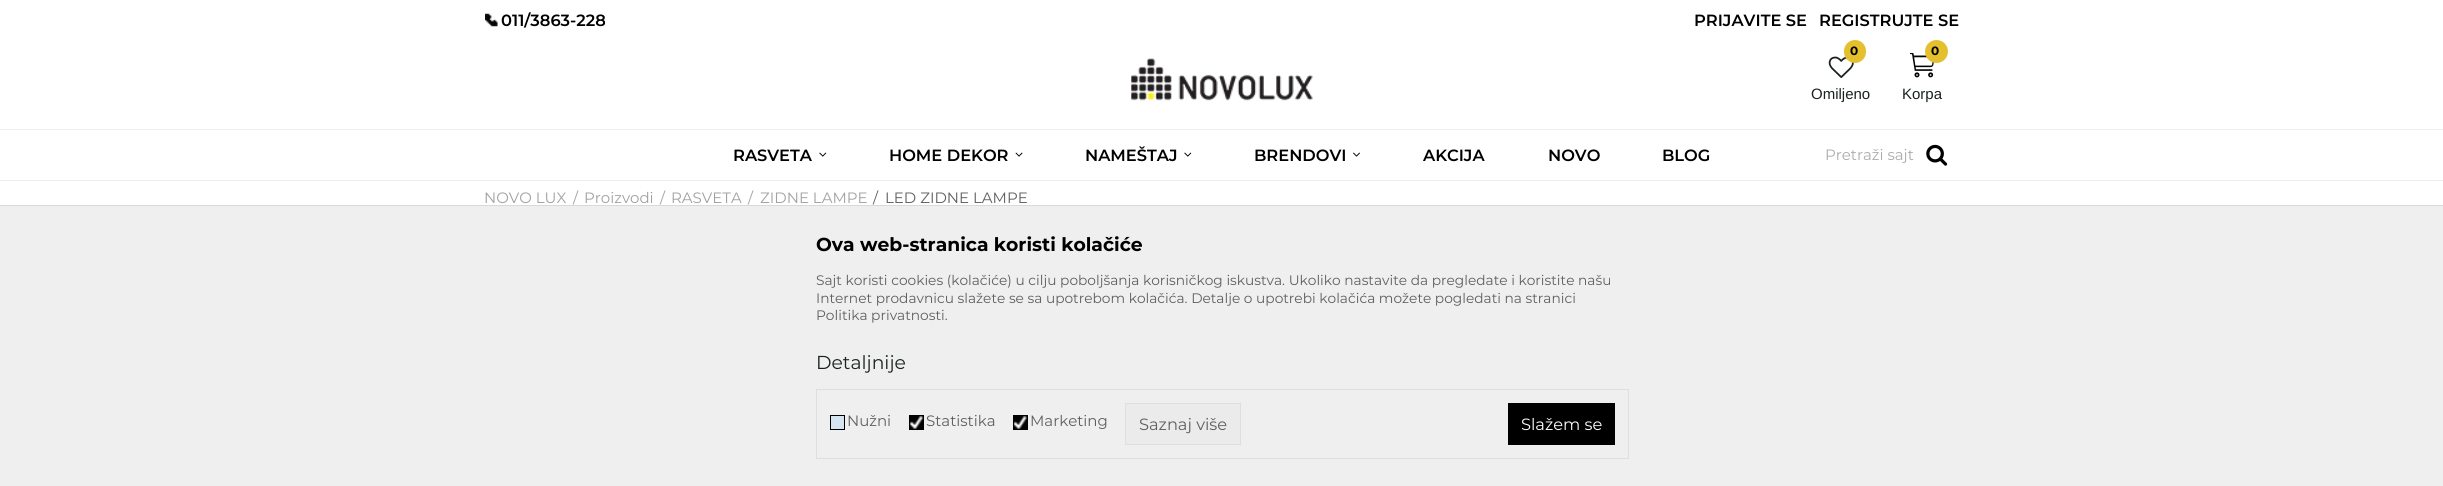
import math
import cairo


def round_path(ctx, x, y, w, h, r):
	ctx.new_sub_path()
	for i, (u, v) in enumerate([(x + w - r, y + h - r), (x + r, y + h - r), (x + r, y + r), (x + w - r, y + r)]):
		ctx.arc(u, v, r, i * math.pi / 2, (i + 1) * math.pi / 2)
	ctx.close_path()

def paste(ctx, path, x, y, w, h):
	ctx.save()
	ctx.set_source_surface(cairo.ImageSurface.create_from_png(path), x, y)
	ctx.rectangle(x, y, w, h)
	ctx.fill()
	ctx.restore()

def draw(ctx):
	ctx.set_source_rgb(1, 1, 1)
	ctx.paint()
	paste(ctx, 'media/1.png', 485, 13, 13, 14)
	ctx.select_font_face('Montserrat SemiBold')
	ctx.set_font_size(16.25)
	ctx.set_source_rgb(0, 0, 0)
	for x, y, s in [
		(501, 26, '011/3863-228'),
		(1694, 26, 'PRIJAVITE SE'),
		(1819, 26, 'REGISTRUJTE SE'),
	]:
		ctx.move_to(x, y)
		ctx.show_text(s)
	paste(ctx, 'media/2.png', 1131, 58, 182, 43)
	paste(ctx, 'media/3.png', 1828, 56, 26, 22)
	ctx.set_source_rgb(0.894, 0.753, 0.184)
	round_path(ctx, 1844, 40, 22, 23, 11)
	ctx.fill()
	ctx.select_font_face('Montserrat', cairo.FONT_SLANT_NORMAL, cairo.FONT_WEIGHT_BOLD)
	ctx.set_font_size(12)
	ctx.set_source_rgb(0, 0, 0)
	ctx.move_to(1850, 55)
	ctx.show_text('0')
	ctx.select_font_face('Liberation Sans')
	ctx.set_font_size(15)
	ctx.set_source_rgb(0.106, 0.137, 0.118)
	ctx.move_to(1811, 99)
	ctx.show_text('Omiljeno')
	paste(ctx, 'media/4.png', 1910, 53, 24, 25)
	ctx.set_source_rgb(0.894, 0.753, 0.184)
	ctx.arc(1936.5, 51.5, 11.5, 0, 2 * math.pi)
	ctx.fill()
	ctx.select_font_face('Montserrat', cairo.FONT_SLANT_NORMAL, cairo.FONT_WEIGHT_BOLD)
	ctx.set_font_size(12)
	ctx.set_source_rgb(0, 0, 0)
	ctx.move_to(1931, 55)
	ctx.show_text('0')
	ctx.select_font_face('Liberation Sans')
	ctx.set_font_size(15)
	ctx.set_source_rgb(0.106, 0.137, 0.118)
	ctx.move_to(1902, 99)
	ctx.show_text('Korpa')
	ctx.set_source_rgb(0.933, 0.933, 0.933)
	ctx.rectangle(0, 129, 2443, 1)
	ctx.fill()
	ctx.rectangle(0, 180, 2443, 1)
	ctx.fill()
	ctx.select_font_face('Montserrat SemiBold')
	ctx.set_font_size(16.25)
	ctx.set_source_rgb(0, 0, 0)
	ctx.move_to(733, 161)
	ctx.show_text('RASVETA')
	paste(ctx, 'media/5.png', 819, 152, 8, 5)
	ctx.move_to(889, 161)
	ctx.show_text('HOME DEKOR')
	paste(ctx, 'media/6.png', 1015, 152, 8, 5)
	ctx.move_to(1085, 161)
	ctx.show_text('NAMEŠTAJ')
	paste(ctx, 'media/5.png', 1184, 152, 8, 5)
	ctx.move_to(1254, 161)
	ctx.show_text('BRENDOVI')
	paste(ctx, 'media/7.png', 1353, 152, 7, 5)
	for x, y, s in [
		(1423, 161, 'AKCIJA'),
		(1548, 161, 'NOVO'),
		(1662, 161, 'BLOG'),
	]:
		ctx.move_to(x, y)
		ctx.show_text(s)
	ctx.select_font_face('Montserrat')
	ctx.set_font_size(15)
	ctx.set_source_rgb(0.671, 0.671, 0.671)
	ctx.move_to(1825, 160)
	ctx.show_text('Pretraži sajt')
	paste(ctx, 'media/8.png', 1926, 144, 22, 22)
	ctx.set_source_rgb(0.631, 0.631, 0.631)
	for x, y, s in [
		(484, 203, 'NOVO LUX'),
		(573, 203, '/'),
		(584, 203, 'Proizvodi'),
		(660, 203, '/'),
		(671, 203, 'RASVETA'),
		(748, 203, '/'),
		(760, 203, 'ZIDNE LAMPE'),
	]:
		ctx.move_to(x, y)
		ctx.show_text(s)
	ctx.set_source_rgb(0.373, 0.373, 0.373)
	ctx.move_to(873, 203)
	ctx.show_text('/')
	ctx.move_to(885, 203)
	ctx.show_text('LED ZIDNE LAMPE')
	ctx.rectangle(-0.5, 205.5, 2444, 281)
	ctx.set_source_rgb(0.851, 0.851, 0.851)
	ctx.set_line_width(1)
	ctx.stroke()
	ctx.set_source_rgb(0.937, 0.937, 0.937)
	ctx.rectangle(0, 206, 2443, 280)
	ctx.fill()
	ctx.select_font_face('Montserrat', cairo.FONT_SLANT_NORMAL, cairo.FONT_WEIGHT_BOLD)
	ctx.set_font_size(18.75)
	ctx.set_source_rgb(0, 0, 0)
	ctx.move_to(816, 251)
	ctx.show_text('Ova web-stranica koristi kolačiće')
	ctx.select_font_face('Montserrat')
	ctx.set_font_size(13.75)
	ctx.set_source_rgb(0.373, 0.373, 0.373)
	for x, y, s in [
		(816, 285, 'Sajt koristi cookies (kolačiće) u cilju poboljšanja korisničkog iskustva. Ukoliko nastavite da pregledate i koristite našu'),
		(816, 303, 'Internet prodavnicu slažete se sa upotrebom kolačića. Detalje o upotrebi kolačića možete pogledati na stranici'),
		(816, 320, 'Politika privatnosti.'),
	]:
		ctx.move_to(x, y)
		ctx.show_text(s)
	ctx.set_font_size(18.75)
	ctx.set_source_rgb(0.106, 0.137, 0.118)
	ctx.move_to(816, 369)
	ctx.show_text('Detaljnije')
	ctx.rectangle(816.5, 389.5, 812, 69)
	ctx.set_source_rgb(0.871, 0.871, 0.871)
	ctx.stroke()
	ctx.set_source_rgb(0.839, 0.89, 0.941)
	ctx.rectangle(830.5, 415.5, 14, 14)
	ctx.fill_preserve()
	ctx.set_source_rgb(0, 0, 0)
	ctx.stroke()
	ctx.set_font_size(15)
	ctx.set_source_rgb(0.373, 0.373, 0.373)
	ctx.move_to(847, 426)
	ctx.show_text('Nužni')
	ctx.set_source_rgb(0, 0, 0)
	ctx.rectangle(910, 416, 13, 13)
	ctx.fill()
	paste(ctx, 'media/9.png', 910, 416, 13, 13)
	ctx.rectangle(909.5, 415.5, 14, 14)
	ctx.stroke()
	ctx.set_source_rgb(0.373, 0.373, 0.373)
	ctx.move_to(926, 426)
	ctx.show_text('Statistika')
	ctx.set_source_rgb(0, 0, 0)
	ctx.rectangle(1014, 416, 13, 13)
	ctx.fill()
	paste(ctx, 'media/10.png', 1014, 416, 13, 13)
	ctx.rectangle(1013.5, 415.5, 14, 14)
	ctx.stroke()
	ctx.set_source_rgb(0.373, 0.373, 0.373)
	ctx.move_to(1030, 426)
	ctx.show_text('Marketing')
	ctx.set_source_rgb(0.918, 0.918, 0.918)
	ctx.rectangle(1125.5, 403.5, 115, 41)
	ctx.fill_preserve()
	ctx.set_source_rgb(0.871, 0.871, 0.871)
	ctx.stroke()
	ctx.set_font_size(16.25)
	ctx.set_source_rgb(0.373, 0.373, 0.373)
	ctx.move_to(1139, 430)
	ctx.show_text('Saznaj više')
	ctx.set_source_rgb(0, 0, 0)
	ctx.rectangle(1508, 403, 107, 42)
	ctx.fill()
	ctx.set_source_rgb(1, 1, 1)
	ctx.move_to(1521, 430)
	ctx.show_text('Slažem se')


surface = cairo.ImageSurface(cairo.FORMAT_RGB24, 2443, 486)
ctx = cairo.Context(surface)
options = cairo.FontOptions()
options.set_hint_metrics(cairo.HINT_METRICS_OFF)
options.set_hint_style(cairo.HINT_STYLE_NONE)
ctx.set_font_options(options)
ctx.set_miter_limit(4)
draw(ctx)
surface.write_to_png('image.png')
